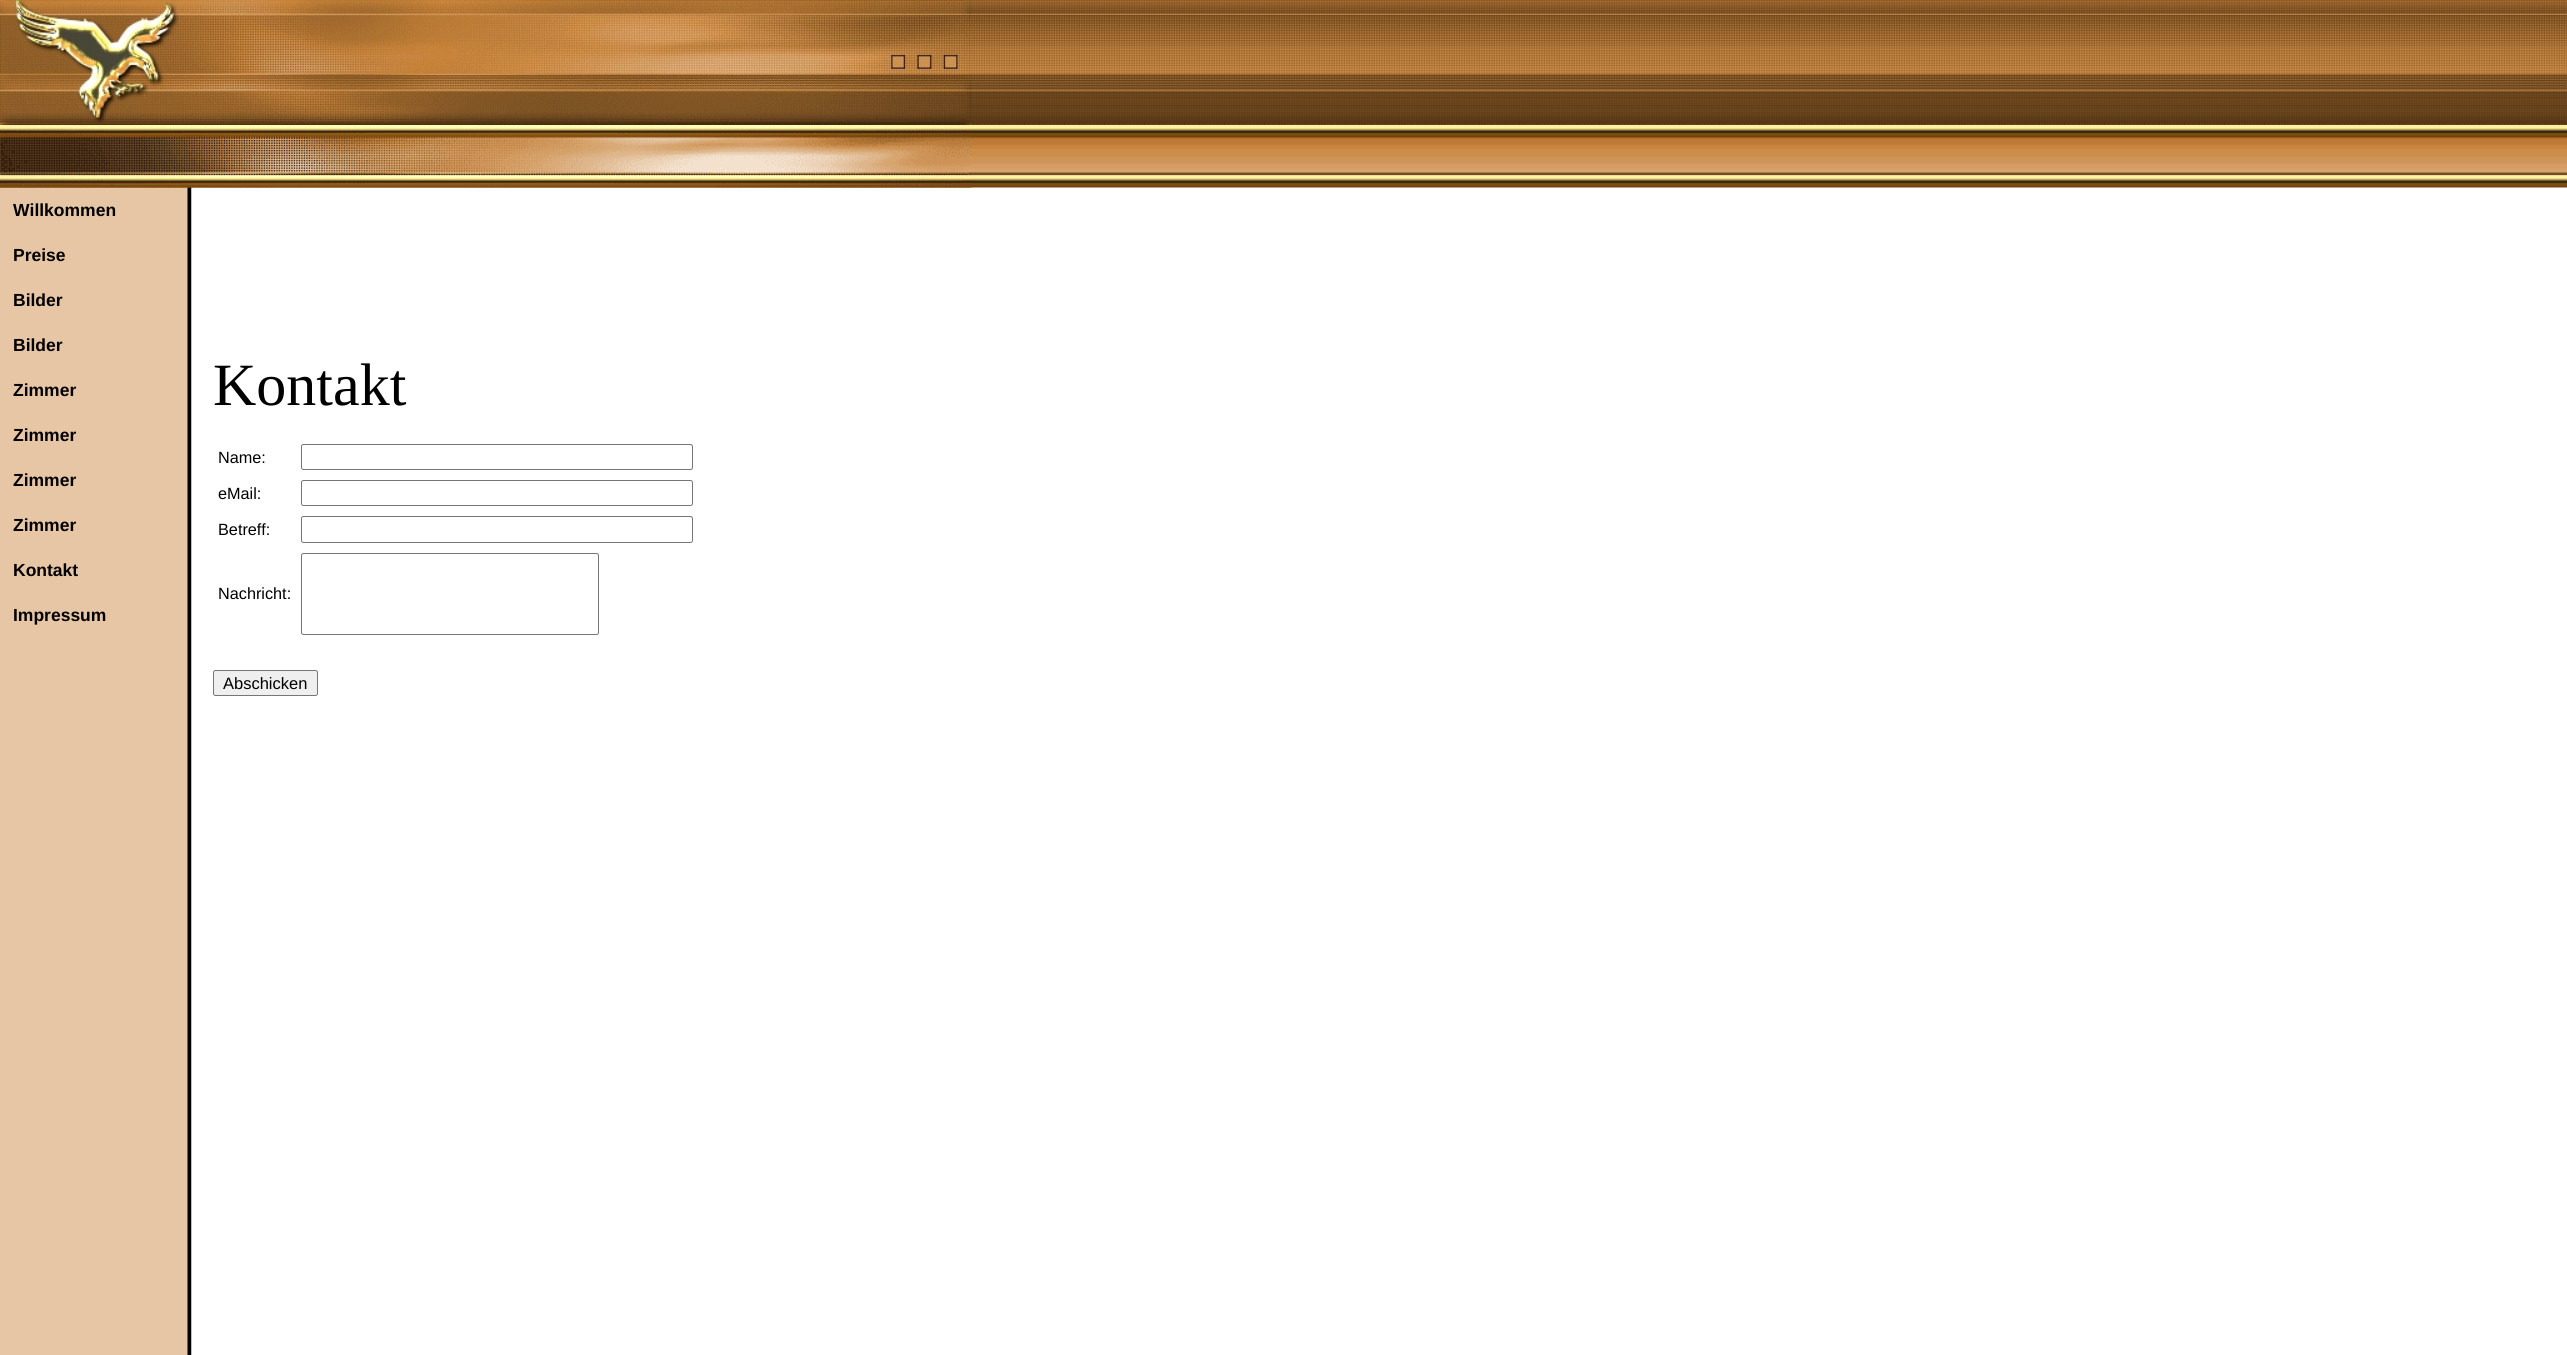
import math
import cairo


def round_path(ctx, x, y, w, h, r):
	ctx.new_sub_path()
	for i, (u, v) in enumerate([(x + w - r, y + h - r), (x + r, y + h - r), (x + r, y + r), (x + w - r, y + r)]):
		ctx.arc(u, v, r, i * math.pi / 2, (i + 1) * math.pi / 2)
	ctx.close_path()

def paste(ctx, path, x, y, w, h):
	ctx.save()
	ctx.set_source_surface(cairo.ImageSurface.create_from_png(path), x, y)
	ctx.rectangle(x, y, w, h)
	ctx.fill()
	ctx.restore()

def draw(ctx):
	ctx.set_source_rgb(1, 1, 1)
	ctx.paint()
	paste(ctx, 'media/1.png', 0, 187, 192, 1168)
	paste(ctx, 'media/2.png', 971, 0, 1596, 125)
	paste(ctx, 'media/3.png', 0, 0, 972, 125)
	paste(ctx, 'media/4.png', 0, 125, 2567, 63)
	paste(ctx, 'media/5.png', 0, 125, 972, 63)
	ctx.select_font_face('Liberation Sans', cairo.FONT_SLANT_NORMAL, cairo.FONT_WEIGHT_BOLD)
	ctx.set_font_size(17.5)
	ctx.set_source_rgb(0, 0, 0)
	for x, y, s in [
		(13, 216, 'Willkommen'),
		(13, 261, 'Preise'),
		(13, 306, 'Bilder'),
		(13, 351, 'Bilder'),
		(13, 396, 'Zimmer'),
		(13, 441, 'Zimmer'),
		(13, 486, 'Zimmer'),
		(13, 531, 'Zimmer'),
		(13, 576, 'Kontakt'),
		(13, 621, 'Impressum'),
	]:
		ctx.move_to(x, y)
		ctx.show_text(s)
	ctx.select_font_face('Liberation Serif')
	ctx.set_font_size(60)
	ctx.move_to(213, 405)
	ctx.show_text('Kontakt')
	ctx.select_font_face('Liberation Sans')
	ctx.set_font_size(16.25)
	ctx.move_to(218, 463)
	ctx.show_text('Name:')
	round_path(ctx, 301.5, 444.5, 391, 25, 2)
	ctx.set_source_rgb(0.463, 0.463, 0.463)
	ctx.set_line_width(1)
	ctx.stroke()
	ctx.set_source_rgb(0, 0, 0)
	ctx.move_to(218, 499)
	ctx.show_text('eMail:')
	round_path(ctx, 301.5, 480.5, 391, 25, 2)
	ctx.set_source_rgb(0.463, 0.463, 0.463)
	ctx.stroke()
	ctx.set_source_rgb(0, 0, 0)
	ctx.move_to(218, 535)
	ctx.show_text('Betreff:')
	round_path(ctx, 301.5, 516.5, 391, 26, 2)
	ctx.set_source_rgb(0.463, 0.463, 0.463)
	ctx.stroke()
	ctx.set_source_rgb(0, 0, 0)
	ctx.move_to(218, 599)
	ctx.show_text('Nachricht:')
	round_path(ctx, 301.5, 553.5, 297, 81, 2)
	ctx.set_source_rgb(0.463, 0.463, 0.463)
	ctx.stroke()
	ctx.set_source_rgb(0.937, 0.937, 0.937)
	round_path(ctx, 213.5, 670.5, 104, 25, 2)
	ctx.fill_preserve()
	ctx.set_source_rgb(0.463, 0.463, 0.463)
	ctx.stroke()
	ctx.set_font_size(16.5)
	ctx.set_source_rgb(0, 0, 0)
	ctx.move_to(223, 689)
	ctx.show_text('Abschicken')


surface = cairo.ImageSurface(cairo.FORMAT_RGB24, 2567, 1355)
ctx = cairo.Context(surface)
options = cairo.FontOptions()
options.set_hint_metrics(cairo.HINT_METRICS_OFF)
options.set_hint_style(cairo.HINT_STYLE_NONE)
ctx.set_font_options(options)
ctx.set_miter_limit(4)
draw(ctx)
surface.write_to_png('image.png')
